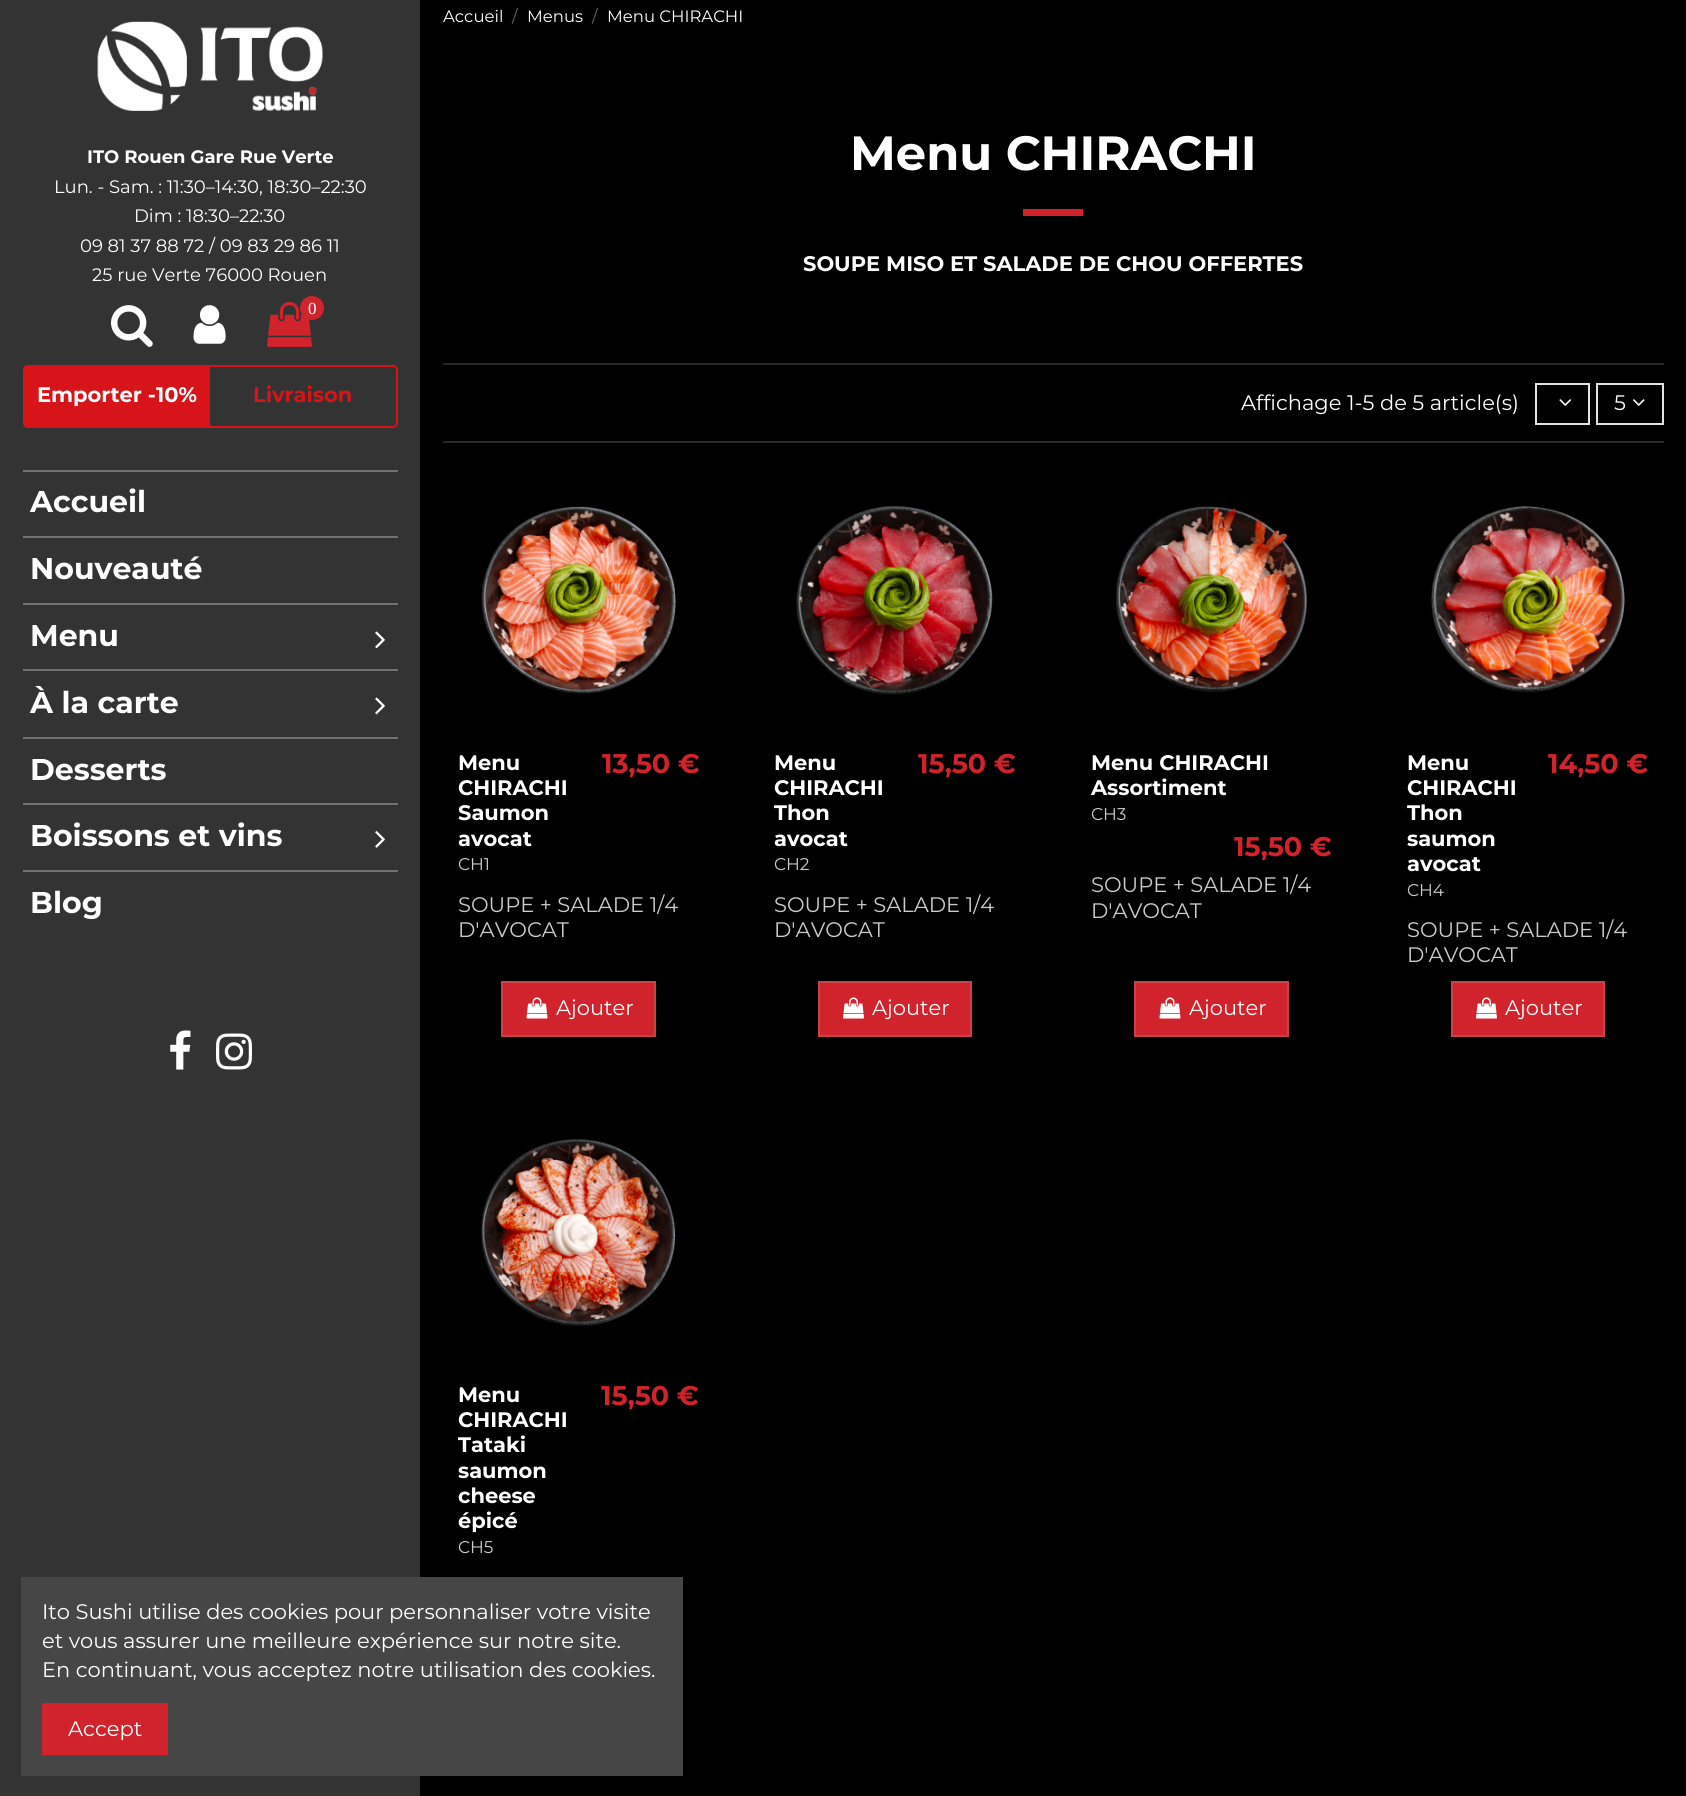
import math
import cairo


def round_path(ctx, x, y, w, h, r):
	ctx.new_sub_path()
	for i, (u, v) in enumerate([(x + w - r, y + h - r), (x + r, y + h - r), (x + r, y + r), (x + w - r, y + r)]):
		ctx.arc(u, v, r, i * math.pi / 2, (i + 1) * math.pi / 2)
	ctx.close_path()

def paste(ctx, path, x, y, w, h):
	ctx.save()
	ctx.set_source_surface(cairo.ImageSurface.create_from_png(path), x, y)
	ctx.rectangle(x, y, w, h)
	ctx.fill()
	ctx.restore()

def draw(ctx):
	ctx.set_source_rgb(0, 0, 0)
	ctx.paint()
	ctx.set_source_rgb(0.2, 0.2, 0.2)
	ctx.rectangle(0, 0, 420, 1796)
	ctx.fill()
	paste(ctx, 'media/1.png', 97, 21, 226, 90)
	ctx.select_font_face('Montserrat', cairo.FONT_SLANT_NORMAL, cairo.FONT_WEIGHT_BOLD)
	ctx.set_font_size(18)
	ctx.set_source_rgb(1, 1, 1)
	ctx.move_to(87, 163)
	ctx.show_text('ITO Rouen Gare Rue Verte')
	ctx.select_font_face('Montserrat')
	for x, y, s in [
		(54, 193, 'Lun. - Sam. : 11:30–14:30, 18:30–22:30'),
		(134, 222, 'Dim : 18:30–22:30'),
		(80, 252, '09 81 37 88 72 / 09 83 29 86 11'),
		(92, 281, '25 rue Verte 76000 Rouen'),
	]:
		ctx.move_to(x, y)
		ctx.show_text(s)
	paste(ctx, 'media/2.png', 111, 305, 42, 42)
	paste(ctx, 'media/3.png', 193, 305, 33, 39)
	paste(ctx, 'media/4.png', 267, 301, 45, 46)
	ctx.set_source_rgb(0.82, 0.137, 0.169)
	ctx.arc(312, 308, 12, 0, 2 * math.pi)
	ctx.fill()
	ctx.select_font_face('Liberation Serif')
	ctx.set_font_size(17)
	ctx.set_source_rgb(1, 1, 1)
	ctx.move_to(308, 314)
	ctx.show_text('0')
	round_path(ctx, 24, 366, 373, 61, 4)
	ctx.set_source_rgb(0.843, 0.082, 0.098)
	ctx.stroke()
	ctx.rectangle(24, 366, 186, 60)
	ctx.fill()
	ctx.select_font_face('Montserrat', cairo.FONT_SLANT_NORMAL, cairo.FONT_WEIGHT_BOLD)
	ctx.set_font_size(21)
	ctx.set_source_rgb(1, 1, 1)
	ctx.move_to(37, 402)
	ctx.show_text('Emporter -10%')
	ctx.set_source_rgb(0.843, 0.082, 0.098)
	ctx.move_to(253, 402)
	ctx.show_text('Livraison')
	ctx.set_source_rgb(0.443, 0.443, 0.443)
	ctx.rectangle(23, 470, 375, 2)
	ctx.fill()
	ctx.set_font_size(30)
	ctx.set_source_rgb(1, 1, 1)
	ctx.move_to(30, 512)
	ctx.show_text('Accueil')
	ctx.set_source_rgb(0.443, 0.443, 0.443)
	ctx.rectangle(23, 536, 375, 2)
	ctx.fill()
	ctx.set_source_rgb(1, 1, 1)
	ctx.move_to(30, 579)
	ctx.show_text('Nouveauté')
	ctx.set_source_rgb(0.443, 0.443, 0.443)
	ctx.rectangle(23, 603, 375, 2)
	ctx.fill()
	ctx.set_source_rgb(1, 1, 1)
	ctx.move_to(30, 646)
	ctx.show_text('Menu')
	paste(ctx, 'media/5.png', 375, 631, 10, 18)
	ctx.set_source_rgb(0.443, 0.443, 0.443)
	ctx.rectangle(23, 669, 375, 2)
	ctx.fill()
	ctx.set_source_rgb(1, 1, 1)
	ctx.move_to(30, 713)
	ctx.show_text('À la carte')
	paste(ctx, 'media/5.png', 375, 697, 10, 18)
	ctx.set_source_rgb(0.443, 0.443, 0.443)
	ctx.rectangle(23, 737, 375, 2)
	ctx.fill()
	ctx.set_source_rgb(1, 1, 1)
	ctx.move_to(30, 780)
	ctx.show_text('Desserts')
	ctx.set_source_rgb(0.443, 0.443, 0.443)
	ctx.rectangle(23, 803, 375, 2)
	ctx.fill()
	ctx.set_source_rgb(1, 1, 1)
	ctx.move_to(30, 846)
	ctx.show_text('Boissons et vins')
	paste(ctx, 'media/6.png', 375, 831, 10, 17)
	ctx.set_source_rgb(0.443, 0.443, 0.443)
	ctx.rectangle(23, 870, 375, 2)
	ctx.fill()
	ctx.set_source_rgb(1, 1, 1)
	ctx.move_to(30, 913)
	ctx.show_text('Blog')
	paste(ctx, 'media/7.png', 170, 1030, 21, 40)
	paste(ctx, 'media/8.png', 216, 1033, 36, 37)
	ctx.select_font_face('Montserrat')
	ctx.set_font_size(16.5)
	ctx.move_to(443, 22)
	ctx.show_text('Accueil')
	ctx.set_source_rgb(0.4, 0.4, 0.4)
	ctx.move_to(512, 22)
	ctx.show_text('/')
	ctx.set_source_rgb(1, 1, 1)
	ctx.move_to(527, 22)
	ctx.show_text('Menus')
	ctx.set_source_rgb(0.4, 0.4, 0.4)
	ctx.move_to(592, 22)
	ctx.show_text('/')
	ctx.set_source_rgb(1, 1, 1)
	ctx.move_to(607, 22)
	ctx.show_text('Menu CHIRACHI')
	ctx.select_font_face('Montserrat', cairo.FONT_SLANT_NORMAL, cairo.FONT_WEIGHT_BOLD)
	ctx.set_font_size(48)
	ctx.move_to(850, 170)
	ctx.show_text('Menu CHIRACHI')
	ctx.set_source_rgb(0.82, 0.137, 0.169)
	ctx.rectangle(1023, 209, 60, 7)
	ctx.fill()
	ctx.set_font_size(21)
	ctx.set_source_rgb(1, 1, 1)
	ctx.move_to(803, 271)
	ctx.show_text('SOUPE MISO ET SALADE DE CHOU OFFERTES')
	ctx.set_source_rgb(0.157, 0.157, 0.157)
	ctx.rectangle(443, 363, 1221, 2)
	ctx.fill()
	ctx.rectangle(443, 441, 1221, 2)
	ctx.fill()
	ctx.select_font_face('Montserrat')
	ctx.set_source_rgb(1, 1, 1)
	ctx.move_to(1241, 410)
	ctx.show_text('Affichage 1-5 de 5 article(s)')
	ctx.rectangle(1536, 384, 53, 40)
	ctx.set_source_rgb(0.89, 0.89, 0.89)
	ctx.stroke()
	paste(ctx, 'media/9.png', 1559, 399, 12, 7)
	ctx.rectangle(1597, 384, 66, 40)
	ctx.stroke()
	ctx.set_source_rgb(1, 1, 1)
	ctx.move_to(1614, 410)
	ctx.show_text('5')
	paste(ctx, 'media/10.png', 1633, 399, 12, 7)
	paste(ctx, 'media/11.png', 481, 506, 195, 188)
	ctx.select_font_face('Montserrat', cairo.FONT_SLANT_NORMAL, cairo.FONT_WEIGHT_BOLD)
	for x, y, s in [
		(458, 770, 'Menu'),
		(458, 795, 'CHIRACHI'),
		(458, 820, 'Saumon'),
		(458, 846, 'avocat'),
	]:
		ctx.move_to(x, y)
		ctx.show_text(s)
	ctx.select_font_face('Montserrat')
	ctx.set_font_size(17)
	ctx.set_source_rgb(0.8, 0.8, 0.8)
	ctx.move_to(458, 870)
	ctx.show_text('CH1')
	ctx.select_font_face('Montserrat', cairo.FONT_SLANT_NORMAL, cairo.FONT_WEIGHT_BOLD)
	ctx.set_font_size(27)
	ctx.set_source_rgb(0.82, 0.137, 0.169)
	ctx.move_to(602, 773)
	ctx.show_text('13,50 €')
	ctx.select_font_face('Montserrat')
	ctx.set_font_size(21)
	ctx.set_source_rgb(0.8, 0.8, 0.8)
	ctx.move_to(458, 912)
	ctx.show_text('SOUPE + SALADE 1/4')
	ctx.move_to(458, 937)
	ctx.show_text('D\'AVOCAT')
	ctx.set_source_rgb(0.82, 0.137, 0.169)
	ctx.rectangle(502, 982, 153, 54)
	ctx.fill_preserve()
	ctx.set_source_rgb(0.773, 0.263, 0.286)
	ctx.stroke()
	paste(ctx, 'media/12.png', 526, 997, 22, 22)
	ctx.set_source_rgb(1, 1, 1)
	ctx.move_to(556, 1015)
	ctx.show_text('Ajouter')
	paste(ctx, 'media/13.png', 796, 506, 197, 189)
	ctx.select_font_face('Montserrat', cairo.FONT_SLANT_NORMAL, cairo.FONT_WEIGHT_BOLD)
	for x, y, s in [
		(774, 770, 'Menu'),
		(774, 795, 'CHIRACHI'),
		(774, 820, 'Thon'),
		(774, 846, 'avocat'),
	]:
		ctx.move_to(x, y)
		ctx.show_text(s)
	ctx.select_font_face('Montserrat')
	ctx.set_font_size(17)
	ctx.set_source_rgb(0.8, 0.8, 0.8)
	ctx.move_to(774, 870)
	ctx.show_text('CH2')
	ctx.select_font_face('Montserrat', cairo.FONT_SLANT_NORMAL, cairo.FONT_WEIGHT_BOLD)
	ctx.set_font_size(27)
	ctx.set_source_rgb(0.82, 0.137, 0.169)
	ctx.move_to(918, 773)
	ctx.show_text('15,50 €')
	ctx.select_font_face('Montserrat')
	ctx.set_font_size(21)
	ctx.set_source_rgb(0.8, 0.8, 0.8)
	ctx.move_to(774, 912)
	ctx.show_text('SOUPE + SALADE 1/4')
	ctx.move_to(774, 937)
	ctx.show_text('D\'AVOCAT')
	ctx.set_source_rgb(0.82, 0.137, 0.169)
	ctx.rectangle(819, 982, 152, 54)
	ctx.fill_preserve()
	ctx.set_source_rgb(0.773, 0.263, 0.286)
	ctx.stroke()
	paste(ctx, 'media/14.png', 843, 997, 21, 22)
	ctx.set_source_rgb(1, 1, 1)
	ctx.move_to(872, 1015)
	ctx.show_text('Ajouter')
	paste(ctx, 'media/15.png', 1115, 506, 193, 187)
	ctx.select_font_face('Montserrat', cairo.FONT_SLANT_NORMAL, cairo.FONT_WEIGHT_BOLD)
	ctx.move_to(1091, 770)
	ctx.show_text('Menu CHIRACHI')
	ctx.move_to(1091, 795)
	ctx.show_text('Assortiment')
	ctx.select_font_face('Montserrat')
	ctx.set_font_size(17)
	ctx.set_source_rgb(0.8, 0.8, 0.8)
	ctx.move_to(1091, 820)
	ctx.show_text('CH3')
	ctx.select_font_face('Montserrat', cairo.FONT_SLANT_NORMAL, cairo.FONT_WEIGHT_BOLD)
	ctx.set_font_size(27)
	ctx.set_source_rgb(0.82, 0.137, 0.169)
	ctx.move_to(1234, 856)
	ctx.show_text('15,50 €')
	ctx.select_font_face('Montserrat')
	ctx.set_font_size(21)
	ctx.set_source_rgb(0.8, 0.8, 0.8)
	ctx.move_to(1091, 892)
	ctx.show_text('SOUPE + SALADE 1/4')
	ctx.move_to(1091, 918)
	ctx.show_text('D\'AVOCAT')
	ctx.set_source_rgb(0.82, 0.137, 0.169)
	ctx.rectangle(1135, 982, 153, 54)
	ctx.fill_preserve()
	ctx.set_source_rgb(0.773, 0.263, 0.286)
	ctx.stroke()
	paste(ctx, 'media/12.png', 1159, 997, 22, 22)
	ctx.set_source_rgb(1, 1, 1)
	ctx.move_to(1189, 1015)
	ctx.show_text('Ajouter')
	paste(ctx, 'media/16.png', 1431, 506, 194, 187)
	ctx.select_font_face('Montserrat', cairo.FONT_SLANT_NORMAL, cairo.FONT_WEIGHT_BOLD)
	for x, y, s in [
		(1407, 770, 'Menu'),
		(1407, 795, 'CHIRACHI'),
		(1407, 820, 'Thon'),
		(1407, 846, 'saumon'),
		(1407, 871, 'avocat'),
	]:
		ctx.move_to(x, y)
		ctx.show_text(s)
	ctx.select_font_face('Montserrat')
	ctx.set_font_size(17)
	ctx.set_source_rgb(0.8, 0.8, 0.8)
	ctx.move_to(1407, 896)
	ctx.show_text('CH4')
	ctx.select_font_face('Montserrat', cairo.FONT_SLANT_NORMAL, cairo.FONT_WEIGHT_BOLD)
	ctx.set_font_size(27)
	ctx.set_source_rgb(0.82, 0.137, 0.169)
	ctx.move_to(1548, 773)
	ctx.show_text('14,50 €')
	ctx.select_font_face('Montserrat')
	ctx.set_font_size(21)
	ctx.set_source_rgb(0.8, 0.8, 0.8)
	ctx.move_to(1407, 937)
	ctx.show_text('SOUPE + SALADE 1/4')
	ctx.move_to(1407, 962)
	ctx.show_text('D\'AVOCAT')
	ctx.set_source_rgb(0.82, 0.137, 0.169)
	ctx.rectangle(1452, 982, 152, 54)
	ctx.fill_preserve()
	ctx.set_source_rgb(0.773, 0.263, 0.286)
	ctx.stroke()
	paste(ctx, 'media/14.png', 1476, 997, 21, 22)
	ctx.set_source_rgb(1, 1, 1)
	ctx.move_to(1505, 1015)
	ctx.show_text('Ajouter')
	paste(ctx, 'media/17.png', 481, 1139, 195, 187)
	ctx.select_font_face('Montserrat', cairo.FONT_SLANT_NORMAL, cairo.FONT_WEIGHT_BOLD)
	for x, y, s in [
		(458, 1402, 'Menu'),
		(458, 1427, 'CHIRACHI'),
		(458, 1452, 'Tataki'),
		(458, 1478, 'saumon'),
		(458, 1503, 'cheese'),
		(458, 1528, 'épicé'),
	]:
		ctx.move_to(x, y)
		ctx.show_text(s)
	ctx.select_font_face('Montserrat')
	ctx.set_font_size(17)
	ctx.set_source_rgb(0.8, 0.8, 0.8)
	ctx.move_to(458, 1553)
	ctx.show_text('CH5')
	ctx.select_font_face('Montserrat', cairo.FONT_SLANT_NORMAL, cairo.FONT_WEIGHT_BOLD)
	ctx.set_font_size(27)
	ctx.set_source_rgb(0.82, 0.137, 0.169)
	ctx.move_to(601, 1405)
	ctx.show_text('15,50 €')
	ctx.set_source_rgb(0.275, 0.275, 0.275)
	ctx.rectangle(21, 1577, 662, 199)
	ctx.fill()
	ctx.select_font_face('Montserrat')
	ctx.set_font_size(21)
	ctx.set_source_rgb(1, 1, 1)
	for x, y, s in [
		(42, 1619, 'Ito Sushi utilise des cookies pour personnaliser votre visite'),
		(42, 1648, 'et vous assurer une meilleure expérience sur notre site.'),
		(42, 1677, 'En continuant, vous acceptez notre utilisation des cookies.'),
	]:
		ctx.move_to(x, y)
		ctx.show_text(s)
	ctx.set_source_rgb(0.82, 0.137, 0.169)
	ctx.rectangle(42, 1703, 126, 52)
	ctx.fill()
	ctx.set_source_rgb(1, 1, 1)
	ctx.move_to(68, 1736)
	ctx.show_text('Accept')


surface = cairo.ImageSurface(cairo.FORMAT_RGB24, 1686, 1796)
ctx = cairo.Context(surface)
options = cairo.FontOptions()
options.set_hint_metrics(cairo.HINT_METRICS_OFF)
options.set_hint_style(cairo.HINT_STYLE_NONE)
ctx.set_font_options(options)
ctx.set_miter_limit(4)
draw(ctx)
surface.write_to_png('image.png')
